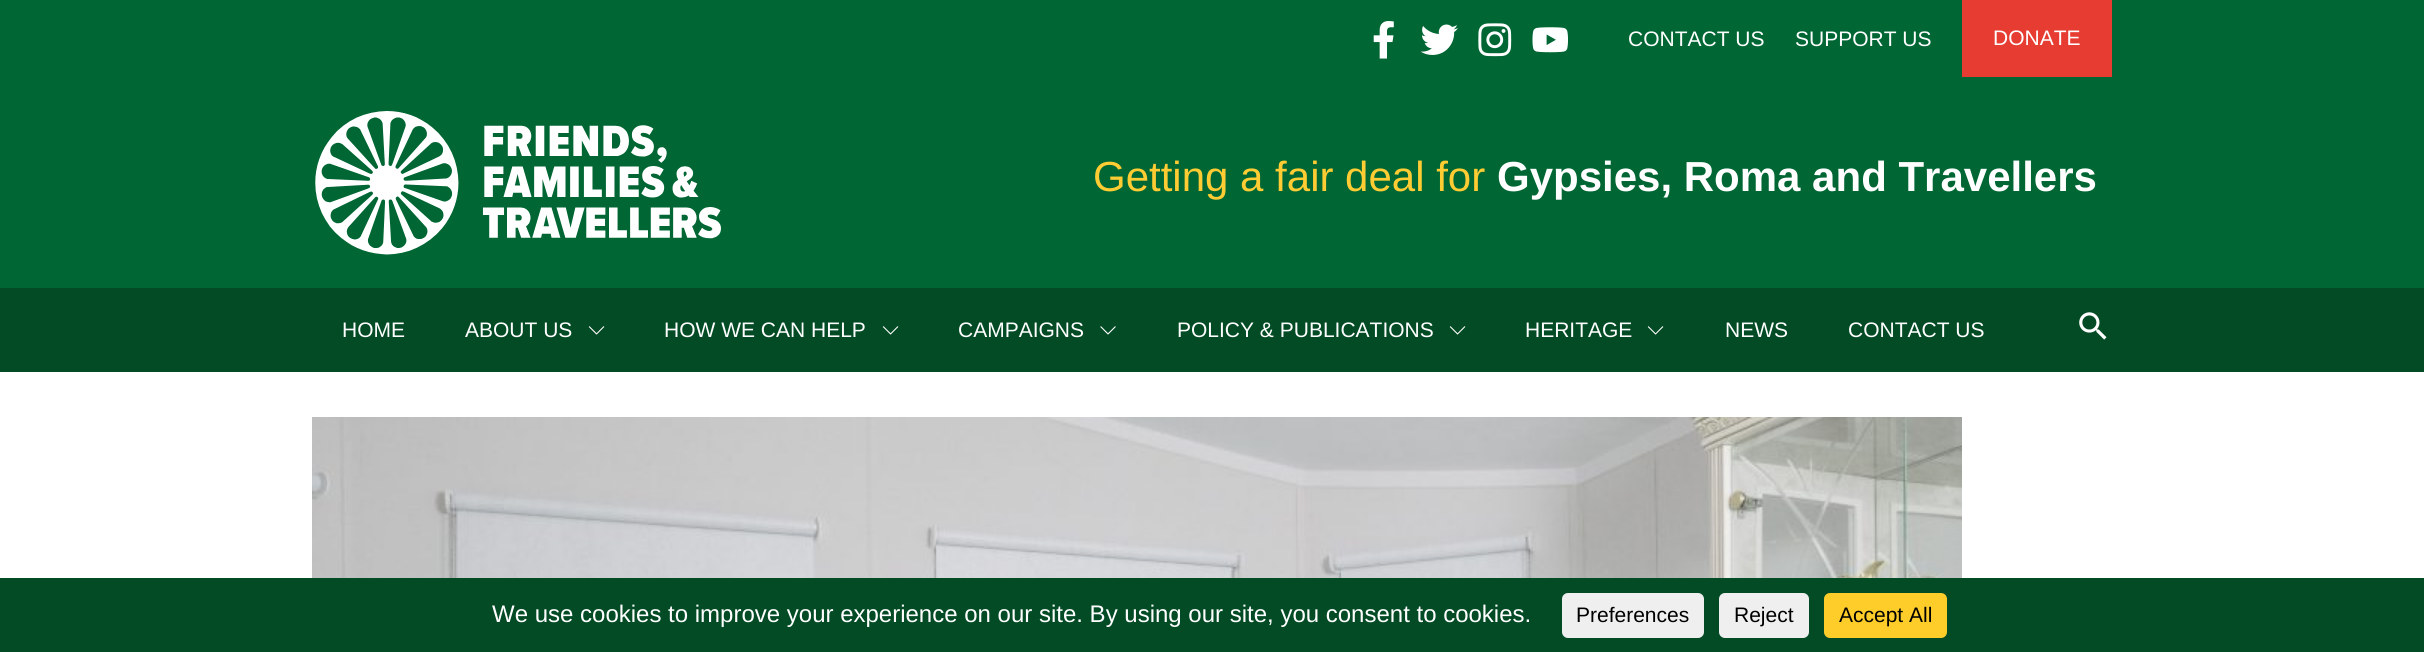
import math
import cairo


def round_path(ctx, x, y, w, h, r):
	ctx.new_sub_path()
	for i, (u, v) in enumerate([(x + w - r, y + h - r), (x + r, y + h - r), (x + r, y + r), (x + w - r, y + r)]):
		ctx.arc(u, v, r, i * math.pi / 2, (i + 1) * math.pi / 2)
	ctx.close_path()

def paste(ctx, path, x, y, w, h):
	ctx.save()
	ctx.set_source_surface(cairo.ImageSurface.create_from_png(path), x, y)
	ctx.rectangle(x, y, w, h)
	ctx.fill()
	ctx.restore()

def draw(ctx):
	ctx.set_source_rgb(1, 1, 1)
	ctx.paint()
	ctx.set_source_rgb(0, 0.4, 0.2)
	ctx.rectangle(0, 0, 2424, 288)
	ctx.fill()
	paste(ctx, 'media/1.png', 1373, 21, 21, 38)
	paste(ctx, 'media/2.png', 1421, 24, 37, 31)
	paste(ctx, 'media/3.png', 1478, 23, 34, 34)
	paste(ctx, 'media/4.png', 1532, 27, 36, 26)
	ctx.select_font_face('Liberation Sans')
	ctx.set_font_size(21)
	ctx.set_source_rgb(1, 1, 1)
	ctx.move_to(1628, 46)
	ctx.show_text('CONTACT US')
	ctx.move_to(1795, 46)
	ctx.show_text('SUPPORT US')
	ctx.set_source_rgb(0.902, 0.235, 0.196)
	ctx.rectangle(1962, 0, 150, 77)
	ctx.fill()
	ctx.set_source_rgb(1, 1, 1)
	ctx.move_to(1993, 45)
	ctx.show_text('DONATE')
	paste(ctx, 'media/5.png', 315, 111, 406, 144)
	ctx.set_font_size(42)
	ctx.set_source_rgb(1, 0.8, 0.2)
	ctx.move_to(1093, 191)
	ctx.show_text('Getting a fair deal for')
	ctx.select_font_face('Liberation Sans', cairo.FONT_SLANT_NORMAL, cairo.FONT_WEIGHT_BOLD)
	ctx.set_source_rgb(1, 1, 1)
	ctx.move_to(1497, 191)
	ctx.show_text('Gypsies, Roma and Travellers')
	ctx.set_source_rgb(0.012, 0.294, 0.145)
	ctx.rectangle(0, 288, 2424, 84)
	ctx.fill()
	ctx.select_font_face('Liberation Sans')
	ctx.set_font_size(21)
	ctx.set_source_rgb(1, 1, 1)
	ctx.move_to(342, 337)
	ctx.show_text('HOME')
	ctx.move_to(465, 337)
	ctx.show_text('ABOUT US')
	paste(ctx, 'media/6.png', 588, 326, 17, 9)
	ctx.move_to(664, 337)
	ctx.show_text('HOW WE CAN HELP')
	paste(ctx, 'media/6.png', 882, 326, 17, 9)
	ctx.move_to(958, 337)
	ctx.show_text('CAMPAIGNS')
	paste(ctx, 'media/7.png', 1100, 326, 16, 9)
	ctx.move_to(1177, 337)
	ctx.show_text('POLICY & PUBLICATIONS')
	paste(ctx, 'media/6.png', 1449, 326, 17, 9)
	ctx.move_to(1525, 337)
	ctx.show_text('HERITAGE')
	paste(ctx, 'media/6.png', 1647, 326, 17, 9)
	ctx.move_to(1725, 337)
	ctx.show_text('NEWS')
	ctx.move_to(1848, 337)
	ctx.show_text('CONTACT US')
	paste(ctx, 'media/8.png', 2079, 312, 28, 28)
	paste(ctx, 'media/9.png', 312, 417, 1650, 161)
	ctx.set_source_rgb(0.012, 0.294, 0.145)
	ctx.rectangle(0, 578, 2424, 74)
	ctx.fill()
	ctx.set_font_size(24)
	ctx.set_source_rgb(1, 1, 1)
	ctx.move_to(492, 622)
	ctx.show_text('We use cookies to improve your experience on our site. By using our site, you consent to cookies.')
	ctx.set_source_rgb(0.937, 0.937, 0.937)
	round_path(ctx, 1562, 593, 142, 45, 6)
	ctx.fill()
	ctx.set_font_size(21)
	ctx.set_source_rgb(0, 0, 0)
	ctx.move_to(1576, 622)
	ctx.show_text('Preferences')
	ctx.set_source_rgb(0.937, 0.937, 0.937)
	round_path(ctx, 1719, 593, 90, 45, 6)
	ctx.fill()
	ctx.set_source_rgb(0, 0, 0)
	ctx.move_to(1734, 622)
	ctx.show_text('Reject')
	ctx.set_source_rgb(1, 0.804, 0.165)
	round_path(ctx, 1824, 593, 123, 45, 6)
	ctx.fill()
	ctx.set_source_rgb(0, 0, 0)
	ctx.move_to(1839, 622)
	ctx.show_text('Accept All')


surface = cairo.ImageSurface(cairo.FORMAT_RGB24, 2424, 652)
ctx = cairo.Context(surface)
options = cairo.FontOptions()
options.set_hint_metrics(cairo.HINT_METRICS_OFF)
options.set_hint_style(cairo.HINT_STYLE_NONE)
ctx.set_font_options(options)
ctx.set_miter_limit(4)
draw(ctx)
surface.write_to_png('image.png')
